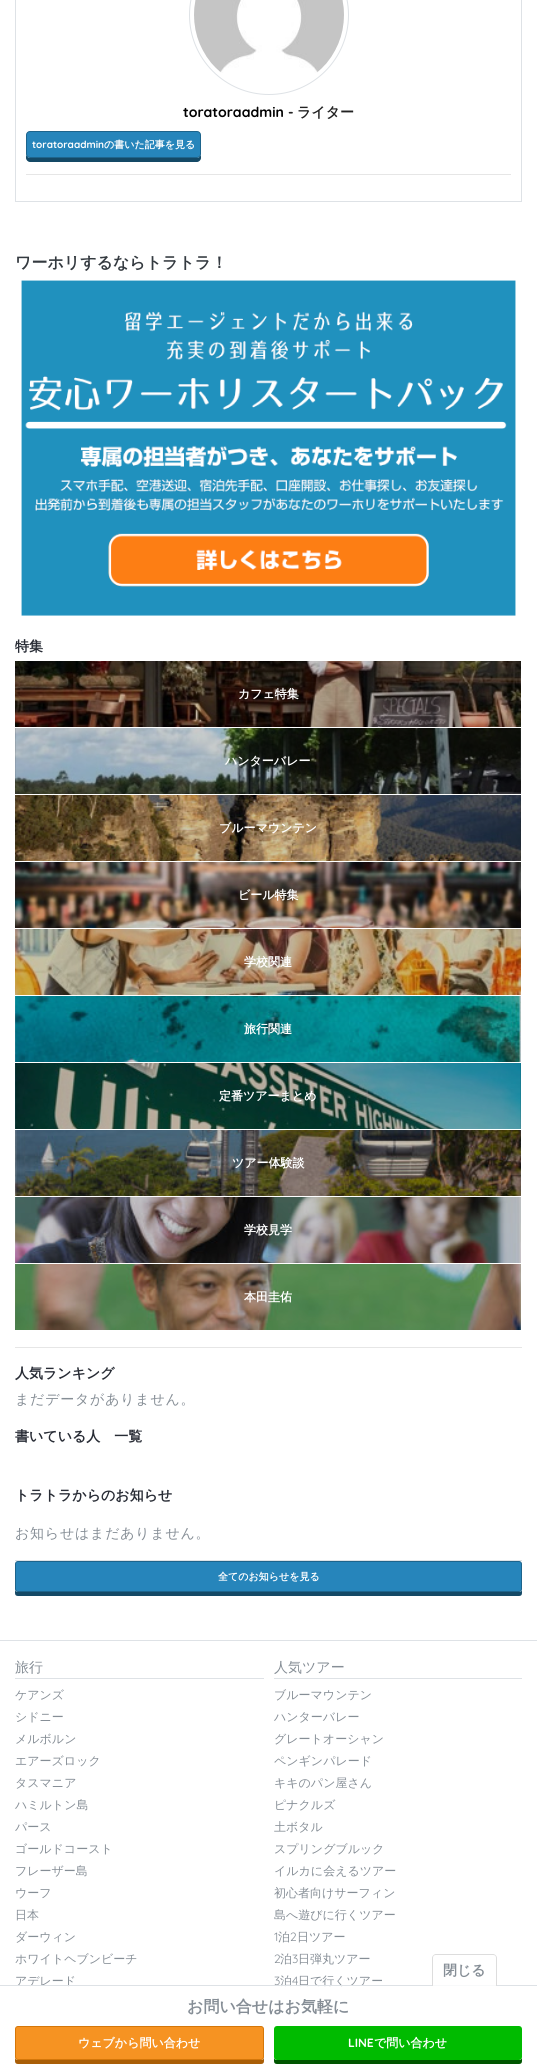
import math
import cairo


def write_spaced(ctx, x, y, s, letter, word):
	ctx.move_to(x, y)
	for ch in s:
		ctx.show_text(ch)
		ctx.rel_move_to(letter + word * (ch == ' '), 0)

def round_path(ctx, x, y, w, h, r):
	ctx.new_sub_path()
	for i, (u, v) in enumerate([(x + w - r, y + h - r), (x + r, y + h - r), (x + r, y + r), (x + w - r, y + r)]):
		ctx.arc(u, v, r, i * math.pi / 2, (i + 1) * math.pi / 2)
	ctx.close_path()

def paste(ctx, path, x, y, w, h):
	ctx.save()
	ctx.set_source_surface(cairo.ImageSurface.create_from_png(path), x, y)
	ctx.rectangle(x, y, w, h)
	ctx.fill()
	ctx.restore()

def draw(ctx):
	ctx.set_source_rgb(1, 1, 1)
	ctx.paint()
	ctx.rectangle(15.5, -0.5, 506, 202)
	ctx.set_source_rgb(0.871, 0.886, 0.902)
	ctx.set_line_width(1)
	ctx.stroke()
	ctx.arc(269, 15, 79.5, 0, 2 * math.pi)
	ctx.stroke()
	paste(ctx, 'media/1.png', 194, 0, 150, 73)
	ctx.select_font_face('Quicksand', cairo.FONT_SLANT_NORMAL, cairo.FONT_WEIGHT_BOLD)
	ctx.set_font_size(14)
	ctx.set_source_rgb(0, 0, 0)
	ctx.move_to(183, 117)
	ctx.show_text('toratoraadmin')
	ctx.set_source_rgb(0.133, 0.133, 0.133)
	ctx.move_to(288, 117)
	ctx.show_text('-')
	ctx.select_font_face('WenQuanYi Zen Hei', cairo.FONT_SLANT_NORMAL, cairo.FONT_WEIGHT_BOLD)
	ctx.move_to(297, 117)
	ctx.show_text('ライター')
	ctx.set_source_rgb(0.082, 0.286, 0.4)
	ctx.new_path()
	ctx.move_to(26, 154)
	ctx.line_to(26, 158)
	ctx.curve_to(26, 160, 28, 162, 30, 162)
	ctx.line_to(197, 162)
	ctx.curve_to(199, 162, 201, 160, 201, 158)
	ctx.line_to(201, 154)
	ctx.curve_to(201, 156, 199, 158, 197, 158)
	ctx.line_to(30, 158)
	ctx.curve_to(28, 158, 26, 156, 26, 154)
	ctx.close_path()
	ctx.fill()
	ctx.set_source_rgb(0.149, 0.522, 0.733)
	round_path(ctx, 26.5, 131.5, 174, 26, 3.5)
	ctx.fill_preserve()
	ctx.set_source_rgb(0.114, 0.392, 0.549)
	ctx.stroke()
	ctx.select_font_face('Quicksand', cairo.FONT_SLANT_NORMAL, cairo.FONT_WEIGHT_BOLD)
	ctx.set_font_size(10)
	ctx.set_source_rgb(1, 1, 1)
	ctx.move_to(32, 148)
	ctx.show_text('toratoraadmin')
	ctx.select_font_face('WenQuanYi Zen Hei', cairo.FONT_SLANT_NORMAL, cairo.FONT_WEIGHT_BOLD)
	ctx.move_to(104, 148)
	ctx.show_text('の書いた記事を見る')
	ctx.set_source_rgb(0.902, 0.902, 0.902)
	ctx.rectangle(26, 174, 485, 1)
	ctx.fill()
	ctx.set_font_size(16)
	ctx.set_source_rgb(0.204, 0.227, 0.251)
	ctx.move_to(15, 268)
	ctx.show_text('ワーホリするならトラトラ！')
	paste(ctx, 'media/2.png', 21, 280, 495, 336)
	ctx.set_font_size(14)
	ctx.set_source_rgb(0.157, 0.173, 0.208)
	ctx.move_to(15, 651)
	ctx.show_text('特集')
	paste(ctx, 'media/3.png', 15, 661, 506, 66)
	ctx.set_font_size(12)
	ctx.set_source_rgb(1, 1, 1)
	ctx.move_to(238, 698)
	ctx.show_text('カフェ特集')
	paste(ctx, 'media/4.png', 15, 728, 506, 66)
	ctx.move_to(225, 765)
	ctx.show_text('ハンターバレー')
	paste(ctx, 'media/5.png', 15, 795, 506, 66)
	ctx.move_to(219, 832)
	ctx.show_text('ブルーマウンテン')
	paste(ctx, 'media/6.png', 15, 862, 506, 66)
	ctx.move_to(238, 899)
	ctx.show_text('ビール特集')
	paste(ctx, 'media/7.png', 15, 929, 506, 66)
	ctx.move_to(244, 966)
	ctx.show_text('学校関連')
	paste(ctx, 'media/8.png', 15, 996, 506, 66)
	ctx.move_to(244, 1033)
	ctx.show_text('旅行関連')
	paste(ctx, 'media/9.png', 15, 1063, 506, 66)
	ctx.move_to(219, 1100)
	ctx.show_text('定番ツアーまとめ')
	paste(ctx, 'media/10.png', 15, 1130, 506, 66)
	ctx.move_to(232, 1167)
	ctx.show_text('ツアー体験談')
	paste(ctx, 'media/11.png', 15, 1197, 506, 66)
	ctx.move_to(244, 1234)
	ctx.show_text('学校見学')
	paste(ctx, 'media/12.png', 15, 1264, 506, 66)
	ctx.move_to(244, 1301)
	ctx.show_text('本田圭佑')
	ctx.set_source_rgb(0.902, 0.902, 0.902)
	ctx.rectangle(15, 1347, 507, 1)
	ctx.fill()
	ctx.set_font_size(14)
	ctx.set_source_rgb(0.157, 0.173, 0.208)
	ctx.move_to(15, 1378)
	ctx.show_text('人気ランキング')
	ctx.select_font_face('WenQuanYi Zen Hei Medium')
	ctx.set_source_rgb(0.525, 0.557, 0.588)
	write_spaced(ctx, 15, 1404, 'まだデータがありません。', 0.75, 0)
	ctx.select_font_face('WenQuanYi Zen Hei', cairo.FONT_SLANT_NORMAL, cairo.FONT_WEIGHT_BOLD)
	ctx.set_source_rgb(0.157, 0.173, 0.208)
	ctx.move_to(15, 1441)
	ctx.show_text('書いている人　一覧')
	ctx.move_to(15, 1500)
	ctx.show_text('トラトラからのお知らせ')
	ctx.set_source_rgb(0.871, 0.886, 0.902)
	ctx.rectangle(15, 1560, 507, 1)
	ctx.fill()
	ctx.select_font_face('WenQuanYi Zen Hei Medium')
	ctx.set_source_rgb(0.525, 0.557, 0.588)
	write_spaced(ctx, 15, 1538, 'お知らせはまだありません。', 0.75, 0)
	ctx.set_source_rgb(0.082, 0.286, 0.4)
	ctx.new_path()
	ctx.move_to(15, 1589)
	ctx.line_to(15, 1593)
	ctx.curve_to(15, 1595, 16, 1596, 18, 1596)
	ctx.line_to(519, 1596)
	ctx.curve_to(521, 1596, 522, 1595, 522, 1593)
	ctx.line_to(522, 1589)
	ctx.curve_to(522, 1591, 521, 1592, 519, 1592)
	ctx.line_to(18, 1592)
	ctx.curve_to(16, 1592, 15, 1591, 15, 1589)
	ctx.close_path()
	ctx.fill()
	ctx.set_source_rgb(0.149, 0.522, 0.733)
	round_path(ctx, 15.5, 1561.5, 506, 30, 2.5)
	ctx.fill_preserve()
	ctx.set_source_rgb(0.114, 0.392, 0.549)
	ctx.stroke()
	ctx.select_font_face('WenQuanYi Zen Hei', cairo.FONT_SLANT_NORMAL, cairo.FONT_WEIGHT_BOLD)
	ctx.set_font_size(10)
	ctx.set_source_rgb(1, 1, 1)
	ctx.move_to(218, 1580)
	ctx.show_text('全てのお知らせを見る')
	ctx.set_source_rgb(0.871, 0.886, 0.902)
	ctx.rectangle(0, 1640, 537, 1)
	ctx.fill()
	ctx.rectangle(15, 1678, 249, 1)
	ctx.fill()
	ctx.select_font_face('WenQuanYi Zen Hei Medium')
	ctx.set_font_size(14)
	ctx.set_source_rgb(0.525, 0.557, 0.588)
	ctx.move_to(15, 1672)
	ctx.show_text('旅行')
	ctx.set_font_size(12)
	for x, y, s in [
		(15, 1699, 'ケアンズ'),
		(15, 1721, 'シドニー'),
		(15, 1743, 'メルボルン'),
		(15, 1765, 'エアーズロック'),
		(15, 1787, 'タスマニア'),
		(15, 1809, 'ハミルトン島'),
		(15, 1831, 'パース'),
		(15, 1853, 'ゴールドコースト'),
		(15, 1875, 'フレーザー島'),
		(15, 1897, 'ウーフ'),
		(15, 1919, '日本'),
		(15, 1941, 'ダーウィン'),
		(15, 1963, 'ホワイトヘブンビーチ'),
		(15, 1985, 'アデレード'),
	]:
		ctx.move_to(x, y)
		ctx.show_text(s)
	ctx.set_source_rgb(0.871, 0.886, 0.902)
	ctx.rectangle(274, 1678, 248, 1)
	ctx.fill()
	ctx.set_font_size(14)
	ctx.set_source_rgb(0.525, 0.557, 0.588)
	ctx.move_to(274, 1672)
	ctx.show_text('人気ツアー')
	ctx.set_font_size(12)
	for x, y, s in [
		(274, 1699, 'ブルーマウンテン'),
		(274, 1721, 'ハンターバレー'),
		(274, 1743, 'グレートオーシャン'),
		(274, 1765, 'ペンギンパレード'),
		(274, 1787, 'キキのパン屋さん'),
		(274, 1809, 'ピナクルズ'),
		(274, 1831, '土ボタル'),
		(274, 1853, 'スプリングブルック'),
		(274, 1875, 'イルカに会えるツアー'),
		(274, 1897, '初心者向けサーフィン'),
		(274, 1919, '島へ遊びに行くツアー'),
	]:
		ctx.move_to(x, y)
		ctx.show_text(s)
	ctx.select_font_face('Quicksand')
	ctx.move_to(274, 1941)
	ctx.show_text('1')
	ctx.select_font_face('WenQuanYi Zen Hei Medium')
	ctx.move_to(278, 1941)
	ctx.show_text('泊')
	ctx.select_font_face('Quicksand')
	ctx.move_to(290, 1941)
	ctx.show_text('2')
	ctx.select_font_face('WenQuanYi Zen Hei Medium')
	ctx.move_to(297, 1941)
	ctx.show_text('日ツアー')
	ctx.select_font_face('Quicksand')
	ctx.move_to(274, 1963)
	ctx.show_text('2')
	ctx.select_font_face('WenQuanYi Zen Hei Medium')
	ctx.move_to(280, 1963)
	ctx.show_text('泊')
	ctx.select_font_face('Quicksand')
	ctx.move_to(292, 1963)
	ctx.show_text('3')
	ctx.select_font_face('WenQuanYi Zen Hei Medium')
	ctx.move_to(298, 1963)
	ctx.show_text('日弾丸ツアー')
	ctx.select_font_face('Quicksand')
	ctx.move_to(274, 1985)
	ctx.show_text('3')
	ctx.select_font_face('WenQuanYi Zen Hei Medium')
	ctx.move_to(280, 1985)
	ctx.show_text('泊')
	ctx.select_font_face('Quicksand')
	ctx.move_to(292, 1985)
	ctx.show_text('4')
	ctx.select_font_face('WenQuanYi Zen Hei Medium')
	ctx.move_to(298, 1985)
	ctx.show_text('日で行くツアー')
	ctx.set_source_rgba(1, 1, 1, 0.8)
	ctx.rectangle(29, 1986, 314, 1)
	ctx.fill()
	ctx.set_source_rgb(0.871, 0.886, 0.902)
	ctx.rectangle(0, 1985, 537, 1)
	ctx.fill()
	ctx.set_source_rgba(1, 1, 1, 0.8)
	ctx.new_path()
	ctx.move_to(436, 1954)
	ctx.line_to(493, 1954)
	ctx.curve_to(495, 1954, 497, 1956, 497, 1958)
	ctx.line_to(497, 1986)
	ctx.line_to(432, 1986)
	ctx.line_to(432, 1958)
	ctx.curve_to(432, 1956, 434, 1954, 436, 1954)
	ctx.close_path()
	ctx.fill()
	ctx.set_source_rgb(0.867, 0.867, 0.867)
	ctx.set_fill_rule(cairo.FILL_RULE_EVEN_ODD)
	ctx.new_path()
	ctx.move_to(436, 1954)
	ctx.line_to(493, 1954)
	ctx.curve_to(495, 1954, 497, 1956, 497, 1958)
	ctx.line_to(497, 1986)
	ctx.line_to(432, 1986)
	ctx.line_to(432, 1958)
	ctx.curve_to(432, 1956, 434, 1954, 436, 1954)
	ctx.close_path()
	ctx.move_to(436, 1955)
	ctx.line_to(493, 1955)
	ctx.curve_to(495, 1955, 496, 1956, 496, 1958)
	ctx.line_to(496, 1986)
	ctx.line_to(433, 1986)
	ctx.line_to(433, 1958)
	ctx.curve_to(433, 1956, 434, 1955, 436, 1955)
	ctx.close_path()
	ctx.fill()
	ctx.select_font_face('WenQuanYi Zen Hei', cairo.FONT_SLANT_NORMAL, cairo.FONT_WEIGHT_BOLD)
	ctx.set_font_size(14)
	ctx.set_source_rgb(0.525, 0.557, 0.588)
	ctx.move_to(443, 1975)
	ctx.show_text('閉じる')
	ctx.set_font_size(16)
	ctx.move_to(187, 2012)
	ctx.show_text('お問い合せはお気軽に')
	ctx.set_source_rgb(0.663, 0.369, 0.031)
	ctx.set_fill_rule(cairo.FILL_RULE_WINDING)
	ctx.new_path()
	ctx.move_to(15, 2057)
	ctx.line_to(15, 2061)
	ctx.curve_to(15, 2063, 16, 2064, 18, 2064)
	ctx.line_to(261, 2064)
	ctx.curve_to(263, 2064, 264, 2063, 264, 2061)
	ctx.line_to(264, 2057)
	ctx.curve_to(264, 2059, 263, 2060, 261, 2060)
	ctx.line_to(18, 2060)
	ctx.curve_to(16, 2060, 15, 2059, 15, 2057)
	ctx.close_path()
	ctx.fill()
	ctx.set_source_rgb(0.961, 0.576, 0.133)
	round_path(ctx, 15.5, 2026.5, 248, 33, 2.5)
	ctx.fill_preserve()
	ctx.set_source_rgb(0.835, 0.467, 0.039)
	ctx.stroke()
	ctx.set_font_size(12)
	ctx.set_source_rgb(1, 1, 1)
	ctx.move_to(78, 2047)
	ctx.show_text('ウェブから問い合わせ')
	ctx.set_source_rgb(0, 0.333, 0)
	ctx.new_path()
	ctx.move_to(274, 2057)
	ctx.line_to(274, 2061)
	ctx.curve_to(274, 2063, 275, 2064, 277, 2064)
	ctx.line_to(519, 2064)
	ctx.curve_to(521, 2064, 522, 2063, 522, 2061)
	ctx.line_to(522, 2057)
	ctx.curve_to(522, 2059, 521, 2060, 519, 2060)
	ctx.line_to(277, 2060)
	ctx.curve_to(275, 2060, 274, 2059, 274, 2057)
	ctx.close_path()
	ctx.fill()
	ctx.set_source_rgb(0, 0.733, 0)
	round_path(ctx, 274, 2026, 248, 34, 3)
	ctx.fill()
	ctx.select_font_face('Quicksand', cairo.FONT_SLANT_NORMAL, cairo.FONT_WEIGHT_BOLD)
	ctx.set_source_rgb(1, 1, 1)
	ctx.move_to(348, 2047)
	ctx.show_text('LINE')
	ctx.select_font_face('WenQuanYi Zen Hei', cairo.FONT_SLANT_NORMAL, cairo.FONT_WEIGHT_BOLD)
	ctx.move_to(374, 2047)
	ctx.show_text('で問い合わせ')


surface = cairo.ImageSurface(cairo.FORMAT_RGB24, 537, 2068)
ctx = cairo.Context(surface)
options = cairo.FontOptions()
options.set_hint_metrics(cairo.HINT_METRICS_OFF)
options.set_hint_style(cairo.HINT_STYLE_NONE)
ctx.set_font_options(options)
ctx.set_miter_limit(4)
draw(ctx)
surface.write_to_png('image.png')
